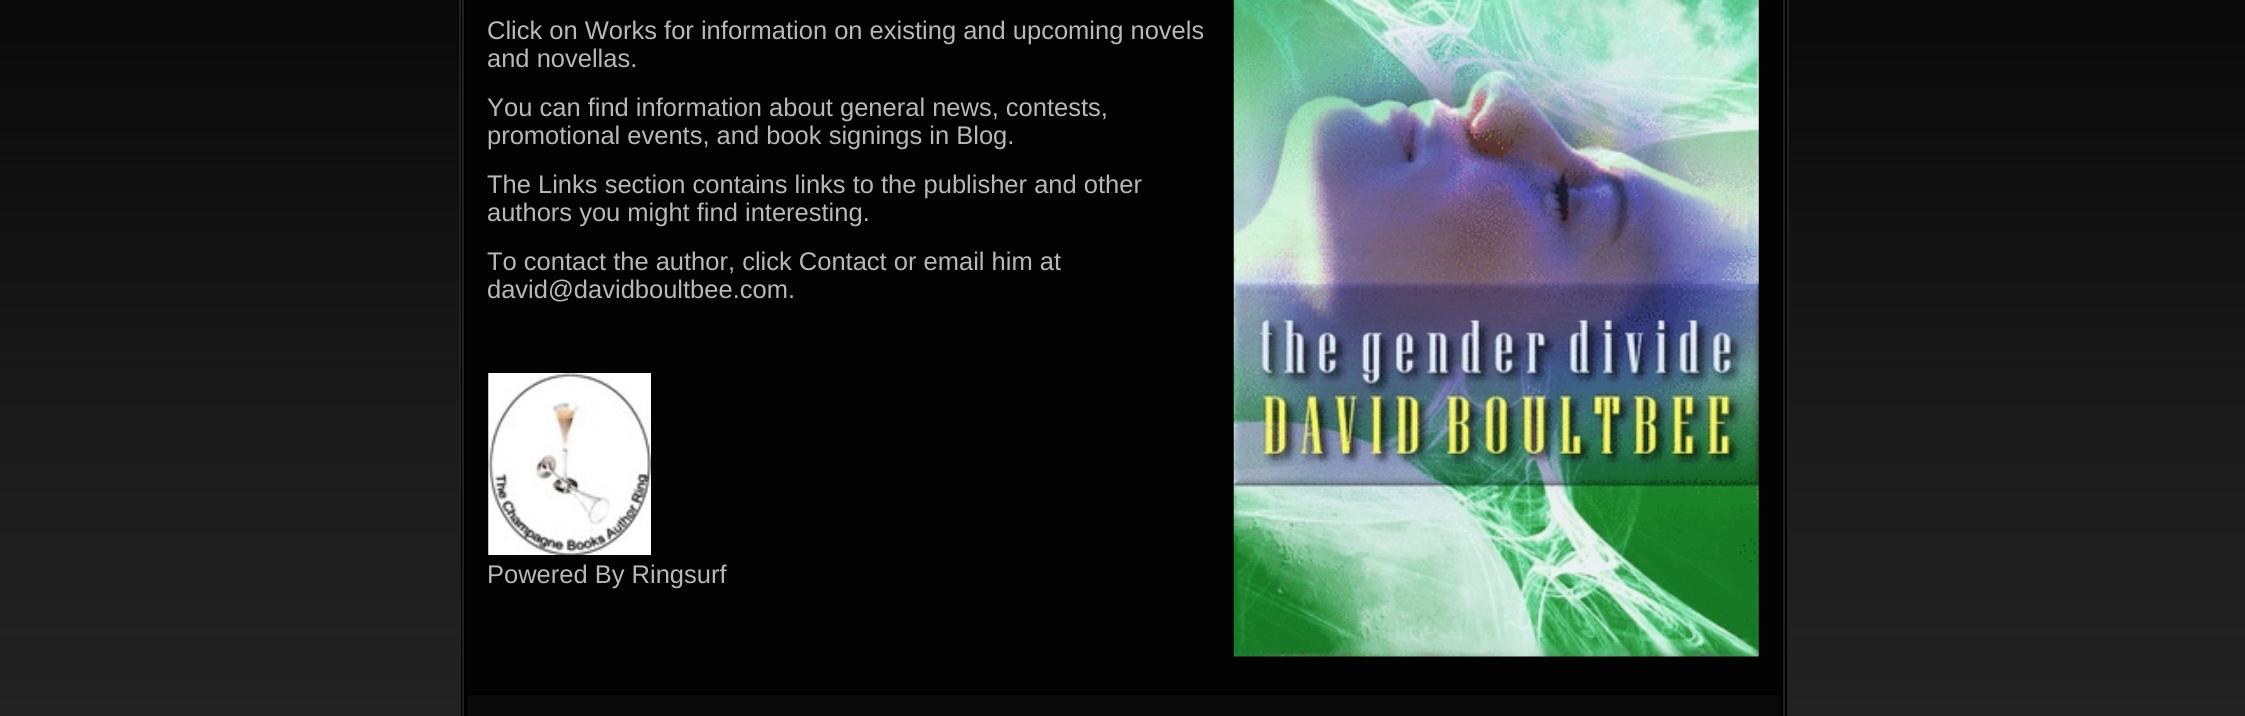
import math
import cairo


def paste(ctx, path, x, y, w, h):
	ctx.save()
	ctx.set_source_surface(cairo.ImageSurface.create_from_png(path), x, y)
	ctx.rectangle(x, y, w, h)
	ctx.fill()
	ctx.restore()

def draw(ctx):
	ctx.set_source_rgb(1, 1, 1)
	ctx.paint()
	paste(ctx, 'media/1.png', 0, 0, 2245, 716)
	ctx.set_source_rgb(0, 0, 0)
	ctx.rectangle(461, 0, 1326, 716)
	ctx.fill()
	ctx.set_source_rgb(0.125, 0.125, 0.125)
	ctx.rectangle(1783, 0, 2, 716)
	ctx.rectangle(1787, 0, 2, 533)
	ctx.rectangle(459, 0, 2, 533)
	ctx.rectangle(462, 0, 2, 716)
	ctx.fill()
	ctx.set_source_rgb(0.012, 0.012, 0.012)
	ctx.rectangle(467, 0, 1313, 691)
	ctx.fill()
	ctx.select_font_face('Liberation Sans')
	ctx.set_font_size(25.5)
	ctx.set_source_rgb(0.722, 0.722, 0.733)
	ctx.move_to(487, 39)
	ctx.show_text('Click on Works for information on existing and upcoming novels')
	ctx.move_to(487, 67)
	ctx.show_text('and novellas.')
	paste(ctx, 'media/2.png', 1233, 0, 526, 657)
	for x, y, s in [
		(487, 116, 'You can find information about general news, contests,'),
		(487, 144, 'promotional events, and book signings in Blog.'),
		(487, 193, 'The Links section contains links to the publisher and other'),
		(487, 221, 'authors you might find interesting.'),
		(487, 270, 'To contact the author, click Contact or email him at'),
		(487, 298, 'david@davidboultbee.com.'),
	]:
		ctx.move_to(x, y)
		ctx.show_text(s)
	paste(ctx, 'media/3.png', 488, 373, 163, 182)
	ctx.move_to(487, 583)
	ctx.show_text('Powered By Ringsurf')
	ctx.set_source_rgb(0.039, 0.039, 0.039)
	ctx.rectangle(467, 695, 1313, 21)
	ctx.fill()


surface = cairo.ImageSurface(cairo.FORMAT_RGB24, 2245, 716)
ctx = cairo.Context(surface)
options = cairo.FontOptions()
options.set_hint_metrics(cairo.HINT_METRICS_OFF)
options.set_hint_style(cairo.HINT_STYLE_NONE)
ctx.set_font_options(options)
ctx.set_miter_limit(4)
draw(ctx)
surface.write_to_png('image.png')
